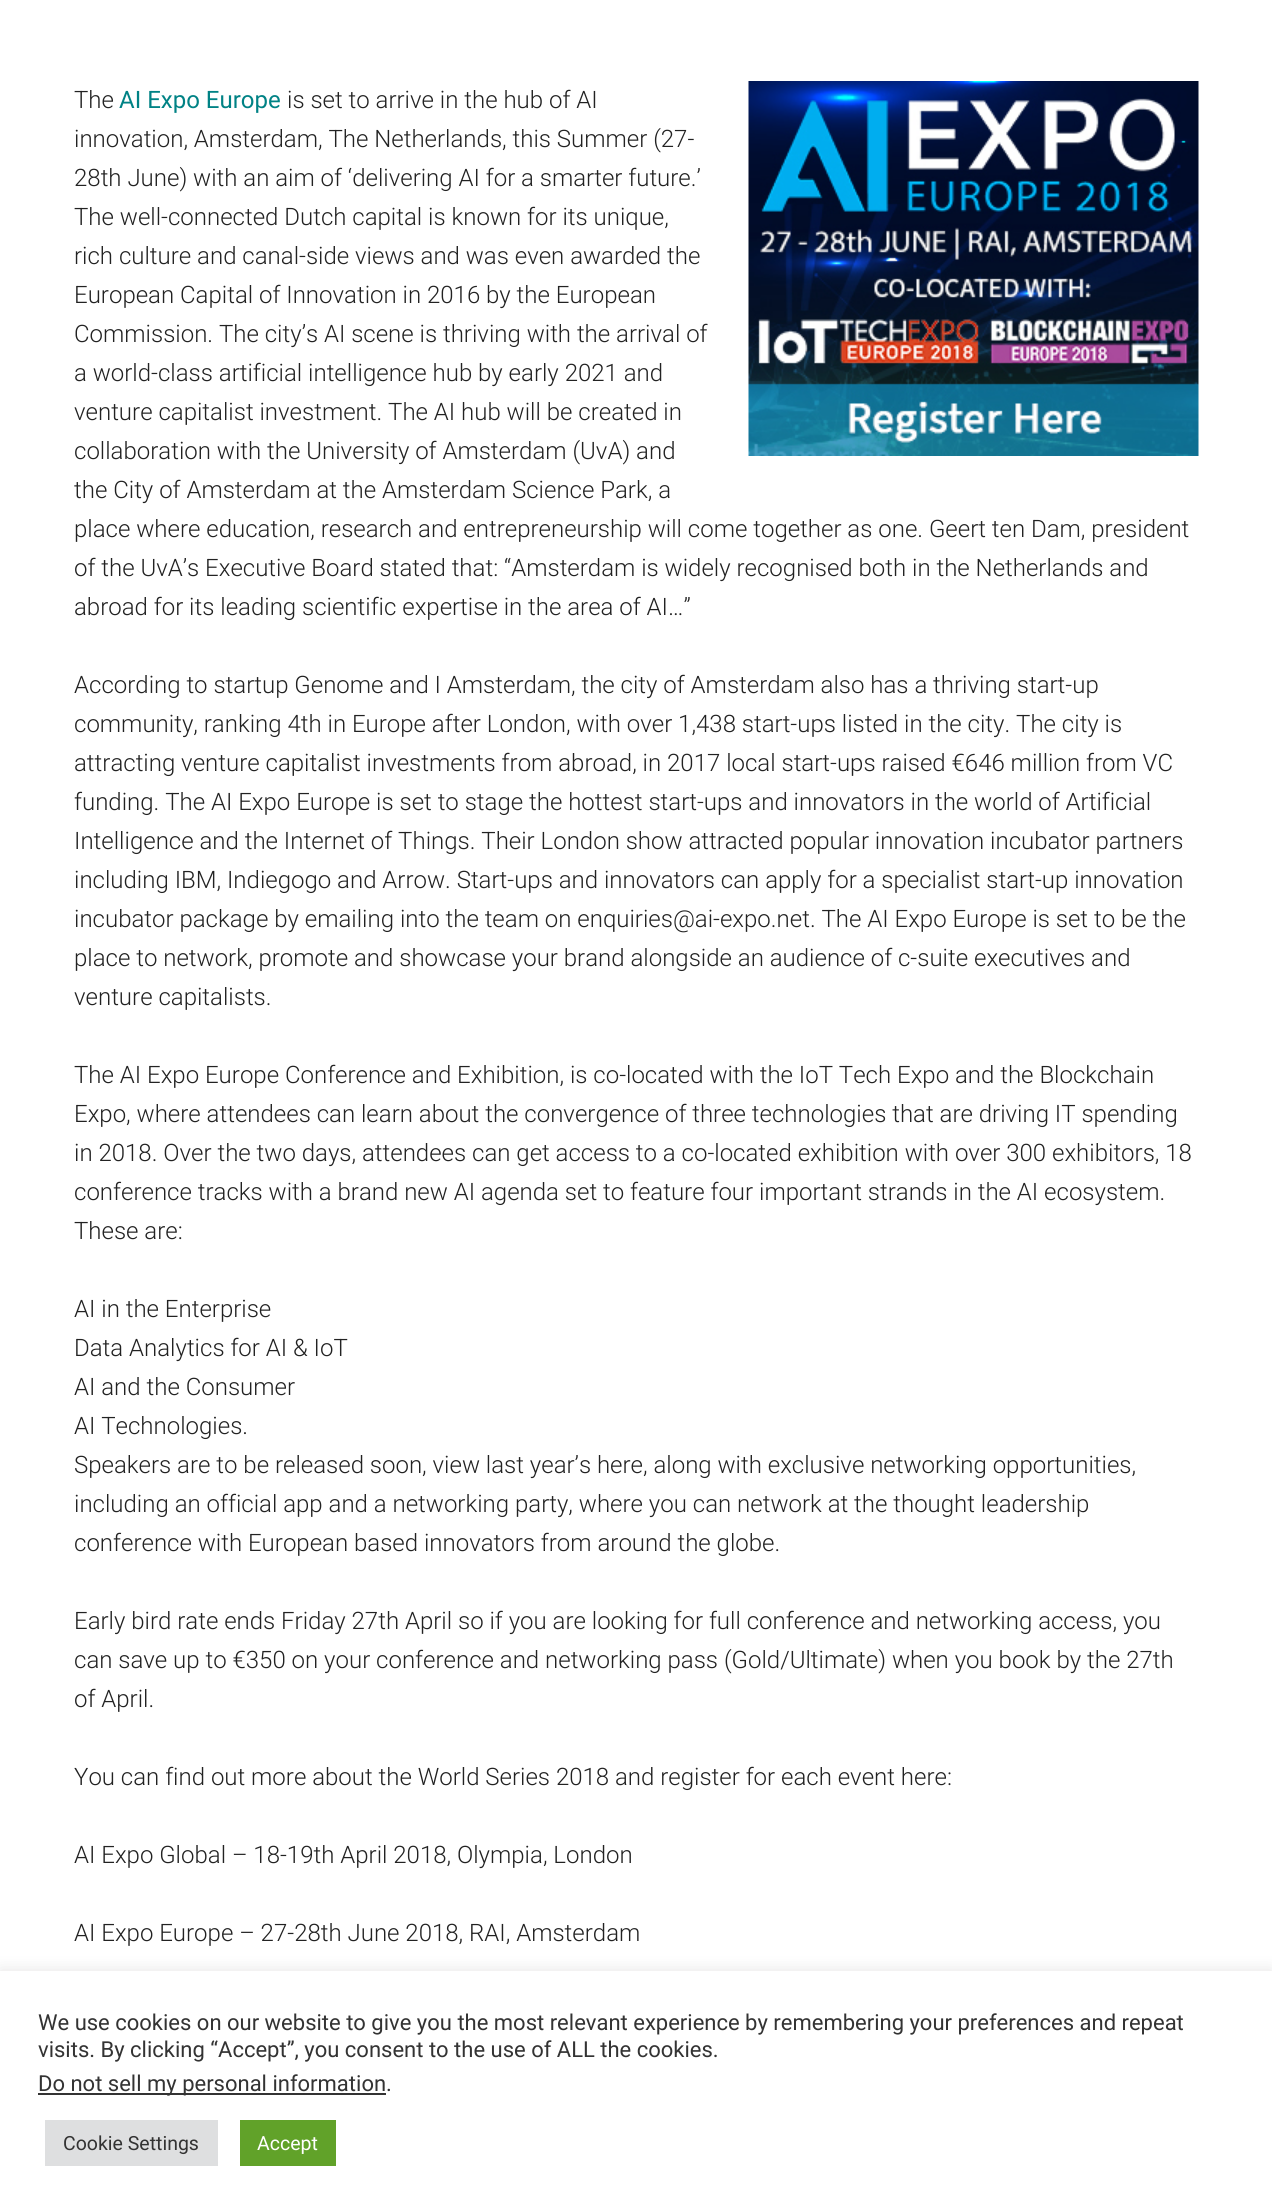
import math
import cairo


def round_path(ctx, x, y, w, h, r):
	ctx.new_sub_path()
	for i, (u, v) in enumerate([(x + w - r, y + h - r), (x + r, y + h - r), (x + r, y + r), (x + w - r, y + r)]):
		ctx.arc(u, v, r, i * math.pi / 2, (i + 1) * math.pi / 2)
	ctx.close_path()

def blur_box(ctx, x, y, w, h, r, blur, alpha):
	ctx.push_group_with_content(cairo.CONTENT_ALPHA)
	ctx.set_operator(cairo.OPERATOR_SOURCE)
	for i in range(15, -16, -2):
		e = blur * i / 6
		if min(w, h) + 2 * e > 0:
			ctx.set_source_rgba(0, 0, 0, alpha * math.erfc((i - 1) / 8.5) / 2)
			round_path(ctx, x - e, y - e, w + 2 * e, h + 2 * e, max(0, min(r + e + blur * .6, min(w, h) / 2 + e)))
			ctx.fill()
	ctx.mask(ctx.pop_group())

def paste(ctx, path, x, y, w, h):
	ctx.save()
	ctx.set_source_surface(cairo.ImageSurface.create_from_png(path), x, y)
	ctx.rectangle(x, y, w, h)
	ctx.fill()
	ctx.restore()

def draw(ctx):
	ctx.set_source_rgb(1, 1, 1)
	ctx.paint()
	ctx.select_font_face('Roboto Light')
	ctx.set_font_size(24)
	ctx.set_source_rgb(0.133, 0.133, 0.133)
	ctx.move_to(74, 108)
	ctx.show_text('The')
	ctx.select_font_face('Roboto')
	ctx.set_source_rgb(0, 0.51, 0.522)
	ctx.move_to(119, 108)
	ctx.show_text('AI Expo Europe')
	ctx.select_font_face('Roboto Light')
	ctx.set_source_rgb(0.133, 0.133, 0.133)
	ctx.move_to(287, 108)
	ctx.show_text('is set to arrive in the hub of AI')
	paste(ctx, 'media/1.png', 748, 81, 451, 375)
	for x, y, s in [
		(74, 147, 'innovation, Amsterdam, The Netherlands, this Summer (27-'),
		(74, 186, '28th June) with an aim of ‘delivering AI for a smarter future.’'),
		(74, 225, 'The well-connected Dutch capital is known for its unique,'),
		(74, 264, 'rich culture and canal-side views and was even awarded the'),
		(74, 303, 'European Capital of Innovation in 2016 by the European'),
		(74, 342, 'Commission. The city’s AI scene is thriving with the arrival of'),
		(74, 381, 'a world-class artificial intelligence hub by early 2021 and'),
		(74, 420, 'venture capitalist investment. The AI hub will be created in'),
		(74, 459, 'collaboration with the University of Amsterdam (UvA) and'),
		(74, 498, 'the City of Amsterdam at the Amsterdam Science Park, a'),
		(74, 537, 'place where education, research and entrepreneurship will come together as one. Geert ten Dam, president'),
		(74, 576, 'of the UvA’s Executive Board stated that: “Amsterdam is widely recognised both in the Netherlands and'),
		(74, 615, 'abroad for its leading scientific expertise in the area of AI…”'),
		(74, 693, 'According to startup Genome and I Amsterdam, the city of Amsterdam also has a thriving start-up'),
		(74, 732, 'community, ranking 4th in Europe after London, with over 1,438 start-ups listed in the city. The city is'),
		(74, 771, 'attracting venture capitalist investments from abroad, in 2017 local start-ups raised €646 million from VC'),
		(74, 810, 'funding. The AI Expo Europe is set to stage the hottest start-ups and innovators in the world of Artificial'),
		(74, 849, 'Intelligence and the Internet of Things. Their London show attracted popular innovation incubator partners'),
		(74, 888, 'including IBM, Indiegogo and Arrow. Start-ups and innovators can apply for a specialist start-up innovation'),
		(74, 927, 'incubator package by emailing into the team on enquiries@ai-expo.net. The AI Expo Europe is set to be the'),
		(74, 966, 'place to network, promote and showcase your brand alongside an audience of c-suite executives and'),
		(74, 1005, 'venture capitalists.'),
		(74, 1083, 'The AI Expo Europe Conference and Exhibition, is co-located with the IoT Tech Expo and the Blockchain'),
		(74, 1122, 'Expo, where attendees can learn about the convergence of three technologies that are driving IT spending'),
		(74, 1161, 'in 2018. Over the two days, attendees can get access to a co-located exhibition with over 300 exhibitors, 18'),
		(74, 1200, 'conference tracks with a brand new AI agenda set to feature four important strands in the AI ecosystem.'),
		(74, 1239, 'These are:'),
		(74, 1317, 'AI in the Enterprise'),
		(74, 1356, 'Data Analytics for AI & IoT'),
		(74, 1395, 'AI and the Consumer'),
		(74, 1434, 'AI Technologies.'),
		(74, 1473, 'Speakers are to be released soon, view last year’s here, along with exclusive networking opportunities,'),
		(74, 1512, 'including an official app and a networking party, where you can network at the thought leadership'),
		(74, 1551, 'conference with European based innovators from around the globe.'),
		(74, 1629, 'Early bird rate ends Friday 27th April so if you are looking for full conference and networking access, you'),
		(74, 1668, 'can save up to €350 on your conference and networking pass (Gold/Ultimate) when you book by the 27th'),
		(74, 1707, 'of April.'),
		(74, 1785, 'You can find out more about the World Series 2018 and register for each event here:'),
		(74, 1863, 'AI Expo Global – 18-19th April 2018, Olympia, London'),
		(74, 1941, 'AI Expo Europe – 27-28th June 2018, RAI, Amsterdam'),
	]:
		ctx.move_to(x, y)
		ctx.show_text(s)
	ctx.set_source_rgb(0.675, 0.671, 0.671)
	blur_box(ctx, 0, 1970, 1272, 240, 0, 7.5, 0.3)
	ctx.set_source_rgb(1, 1, 1)
	ctx.rectangle(0, 1971, 1272, 239)
	ctx.fill()
	ctx.select_font_face('Roboto')
	ctx.set_font_size(22)
	ctx.set_source_rgb(0.2, 0.2, 0.2)
	ctx.move_to(38, 2030)
	ctx.show_text('We use cookies on our website to give you the most relevant experience by remembering your preferences and repeat')
	ctx.move_to(38, 2057)
	ctx.show_text('visits. By clicking “Accept”, you consent to the use of ALL the cookies.')
	ctx.rectangle(38, 2093, 348, 2)
	ctx.fill()
	ctx.move_to(38, 2091)
	ctx.show_text('Do not sell my personal information.')
	ctx.set_source_rgb(0.871, 0.875, 0.878)
	ctx.rectangle(45, 2120, 173, 46)
	ctx.fill()
	ctx.set_font_size(19.5)
	ctx.set_source_rgb(0.2, 0.2, 0.2)
	ctx.move_to(63, 2150)
	ctx.show_text('Cookie Settings')
	ctx.set_source_rgb(0.38, 0.635, 0.161)
	ctx.rectangle(240, 2120, 96, 46)
	ctx.fill()
	ctx.set_source_rgb(1, 1, 1)
	ctx.move_to(257, 2150)
	ctx.show_text('Accept')


surface = cairo.ImageSurface(cairo.FORMAT_RGB24, 1272, 2210)
ctx = cairo.Context(surface)
options = cairo.FontOptions()
options.set_hint_metrics(cairo.HINT_METRICS_OFF)
options.set_hint_style(cairo.HINT_STYLE_NONE)
ctx.set_font_options(options)
ctx.set_miter_limit(4)
draw(ctx)
surface.write_to_png('image.png')
